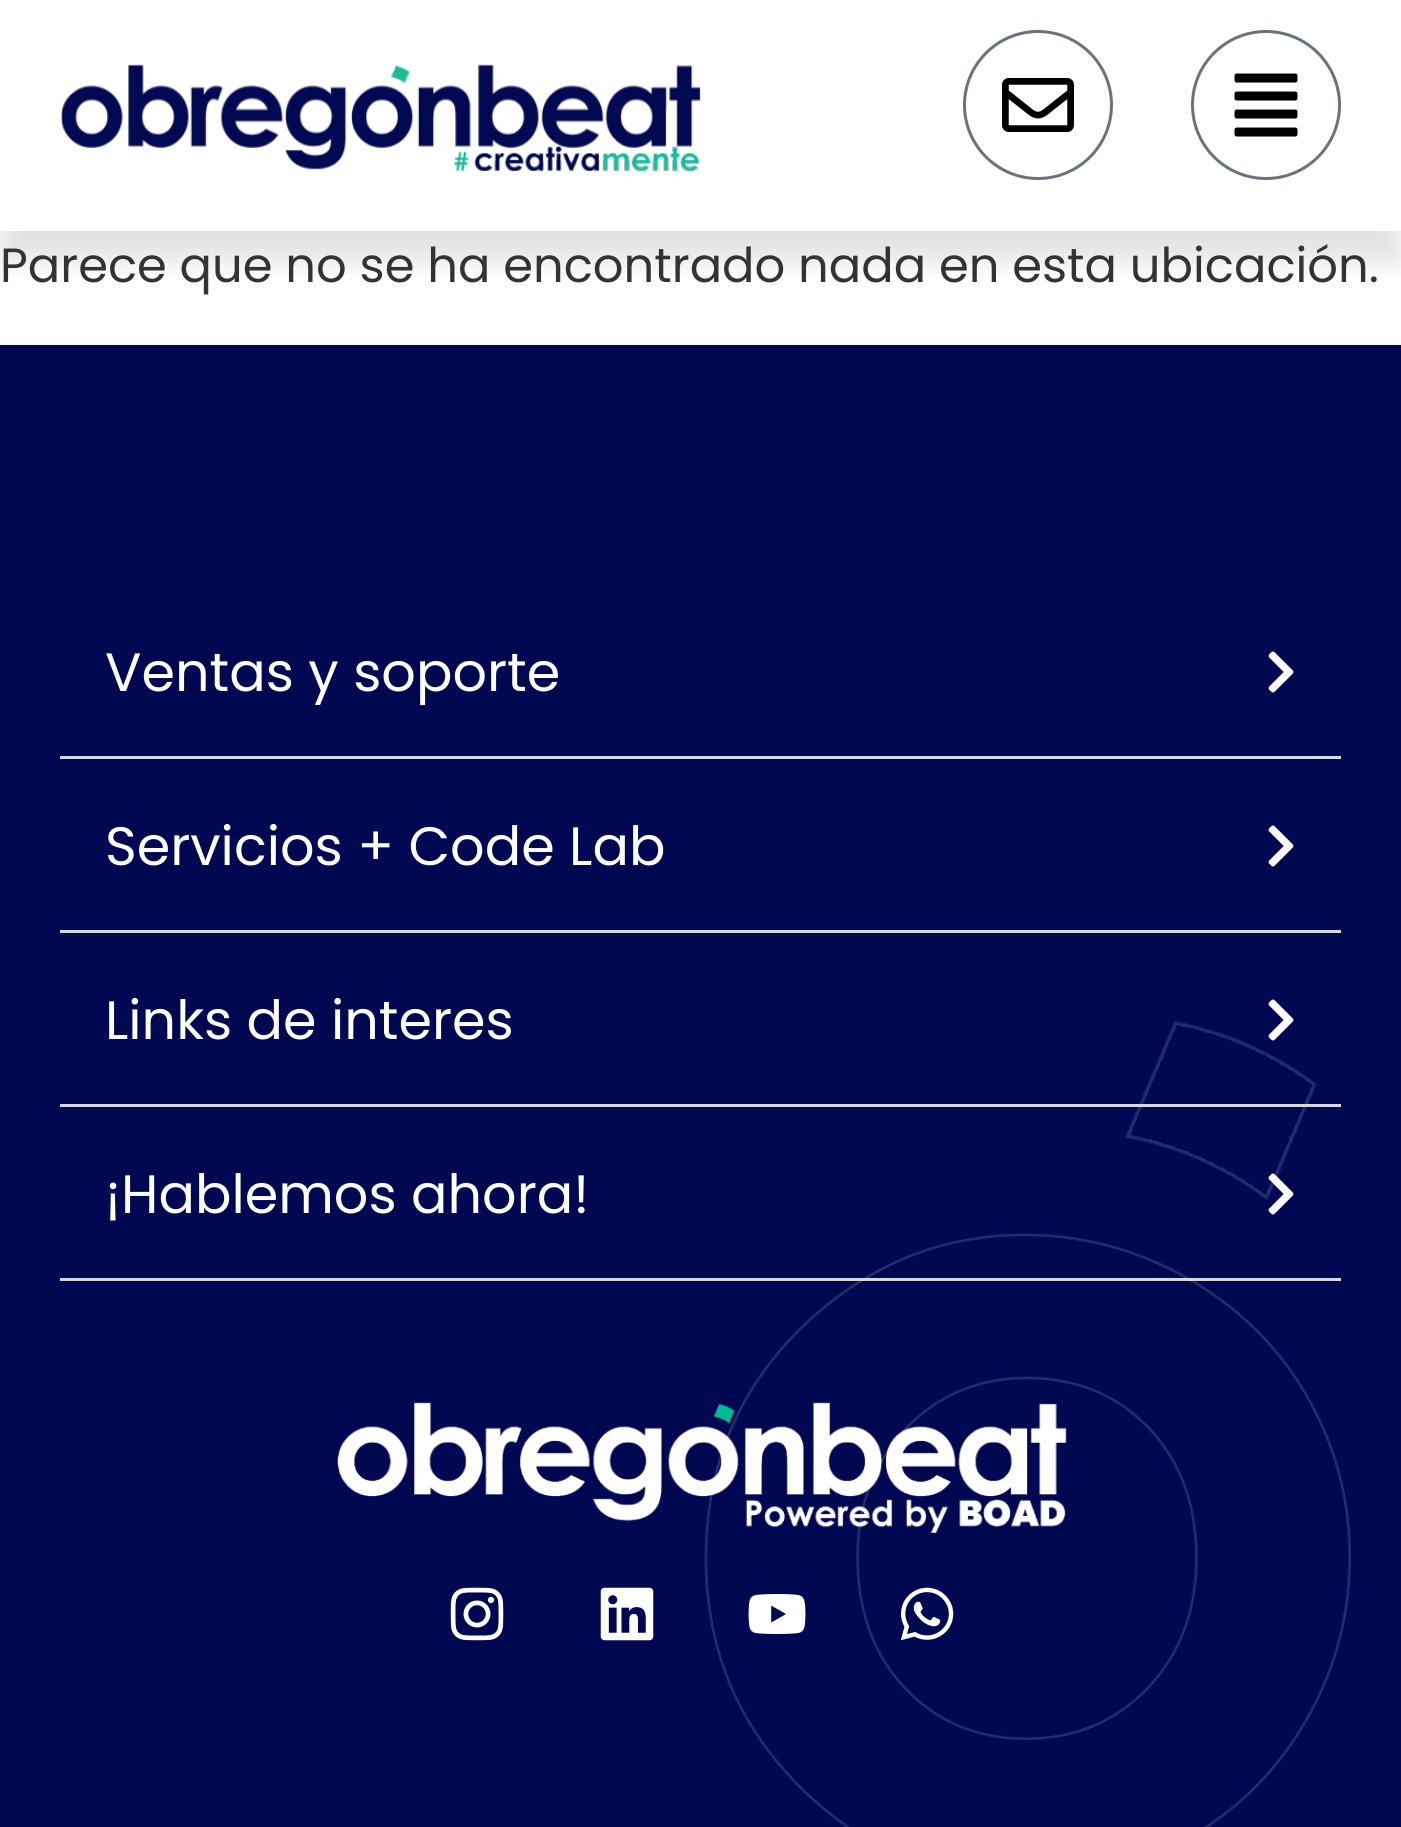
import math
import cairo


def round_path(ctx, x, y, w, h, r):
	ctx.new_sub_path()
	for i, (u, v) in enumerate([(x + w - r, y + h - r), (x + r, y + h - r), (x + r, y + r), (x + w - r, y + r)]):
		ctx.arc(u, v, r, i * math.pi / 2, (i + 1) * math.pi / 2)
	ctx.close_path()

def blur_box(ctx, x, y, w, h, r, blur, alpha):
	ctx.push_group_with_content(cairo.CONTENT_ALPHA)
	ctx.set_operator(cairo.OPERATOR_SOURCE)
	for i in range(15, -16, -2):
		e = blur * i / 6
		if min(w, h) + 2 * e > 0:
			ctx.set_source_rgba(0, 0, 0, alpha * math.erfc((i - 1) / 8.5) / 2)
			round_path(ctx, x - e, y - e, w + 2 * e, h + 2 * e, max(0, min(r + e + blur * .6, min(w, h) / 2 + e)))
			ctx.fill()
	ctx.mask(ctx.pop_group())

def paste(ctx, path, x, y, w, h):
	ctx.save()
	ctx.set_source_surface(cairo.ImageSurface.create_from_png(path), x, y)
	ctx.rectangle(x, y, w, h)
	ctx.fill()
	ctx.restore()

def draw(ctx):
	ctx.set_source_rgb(1, 1, 1)
	ctx.paint()
	ctx.save()
	ctx.rectangle(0, 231, 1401, 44)
	ctx.clip()
	ctx.set_source_rgb(0, 0, 0)
	blur_box(ctx, 0, 30, 1401, 231, 0, 15, 0.12)
	ctx.restore()
	paste(ctx, 'media/1.png', 61, 64, 640, 107)
	ctx.arc(1038, 105, 73.5, 0, 2 * math.pi)
	ctx.set_source_rgb(0.412, 0.447, 0.49)
	ctx.set_line_width(3)
	ctx.stroke()
	paste(ctx, 'media/2.png', 1002, 78, 72, 54)
	ctx.arc(1266, 105, 73.5, 0, 2 * math.pi)
	ctx.stroke()
	paste(ctx, 'media/3.png', 1234, 73, 64, 64)
	ctx.select_font_face('Poppins')
	ctx.set_font_size(48)
	ctx.set_source_rgb(0.2, 0.2, 0.2)
	ctx.move_to(0, 282)
	ctx.show_text('Parece que no se ha encontrado nada en esta ubicación.')
	ctx.set_source_rgb(0, 0.035, 0.322)
	ctx.rectangle(0, 345, 1401, 1482)
	ctx.fill()
	paste(ctx, 'media/4.png', 704, 1021, 647, 806)
	ctx.set_source_rgb(0.835, 0.847, 0.863)
	ctx.rectangle(60, 756, 1281, 3)
	ctx.fill()
	ctx.set_font_size(54)
	ctx.set_source_rgb(1, 1, 1)
	ctx.move_to(105, 691)
	ctx.show_text('Ventas y soporte')
	paste(ctx, 'media/5.png', 1268, 651, 26, 42)
	ctx.set_source_rgb(0.835, 0.847, 0.863)
	ctx.rectangle(60, 930, 1281, 3)
	ctx.fill()
	ctx.set_source_rgb(1, 1, 1)
	ctx.move_to(105, 865)
	ctx.show_text('Servicios + Code Lab')
	paste(ctx, 'media/5.png', 1268, 825, 26, 42)
	ctx.set_source_rgb(0.835, 0.847, 0.863)
	ctx.rectangle(60, 1104, 1281, 3)
	ctx.fill()
	ctx.set_source_rgb(1, 1, 1)
	ctx.move_to(105, 1039)
	ctx.show_text('Links de interes')
	paste(ctx, 'media/5.png', 1268, 999, 26, 42)
	ctx.set_source_rgb(0.835, 0.847, 0.863)
	ctx.rectangle(60, 1278, 1281, 3)
	ctx.fill()
	ctx.set_source_rgb(1, 1, 1)
	ctx.move_to(105, 1213)
	ctx.show_text('¡Hablemos ahora!')
	paste(ctx, 'media/6.png', 1268, 1173, 26, 42)
	paste(ctx, 'media/7.png', 337, 1402, 730, 131)
	paste(ctx, 'media/8.png', 450, 1587, 54, 54)
	paste(ctx, 'media/9.png', 600, 1587, 54, 54)
	paste(ctx, 'media/10.png', 748, 1594, 58, 40)
	paste(ctx, 'media/11.png', 900, 1587, 54, 54)


surface = cairo.ImageSurface(cairo.FORMAT_RGB24, 1401, 1827)
ctx = cairo.Context(surface)
options = cairo.FontOptions()
options.set_hint_metrics(cairo.HINT_METRICS_OFF)
options.set_hint_style(cairo.HINT_STYLE_NONE)
ctx.set_font_options(options)
ctx.set_miter_limit(4)
draw(ctx)
surface.write_to_png('image.png')
